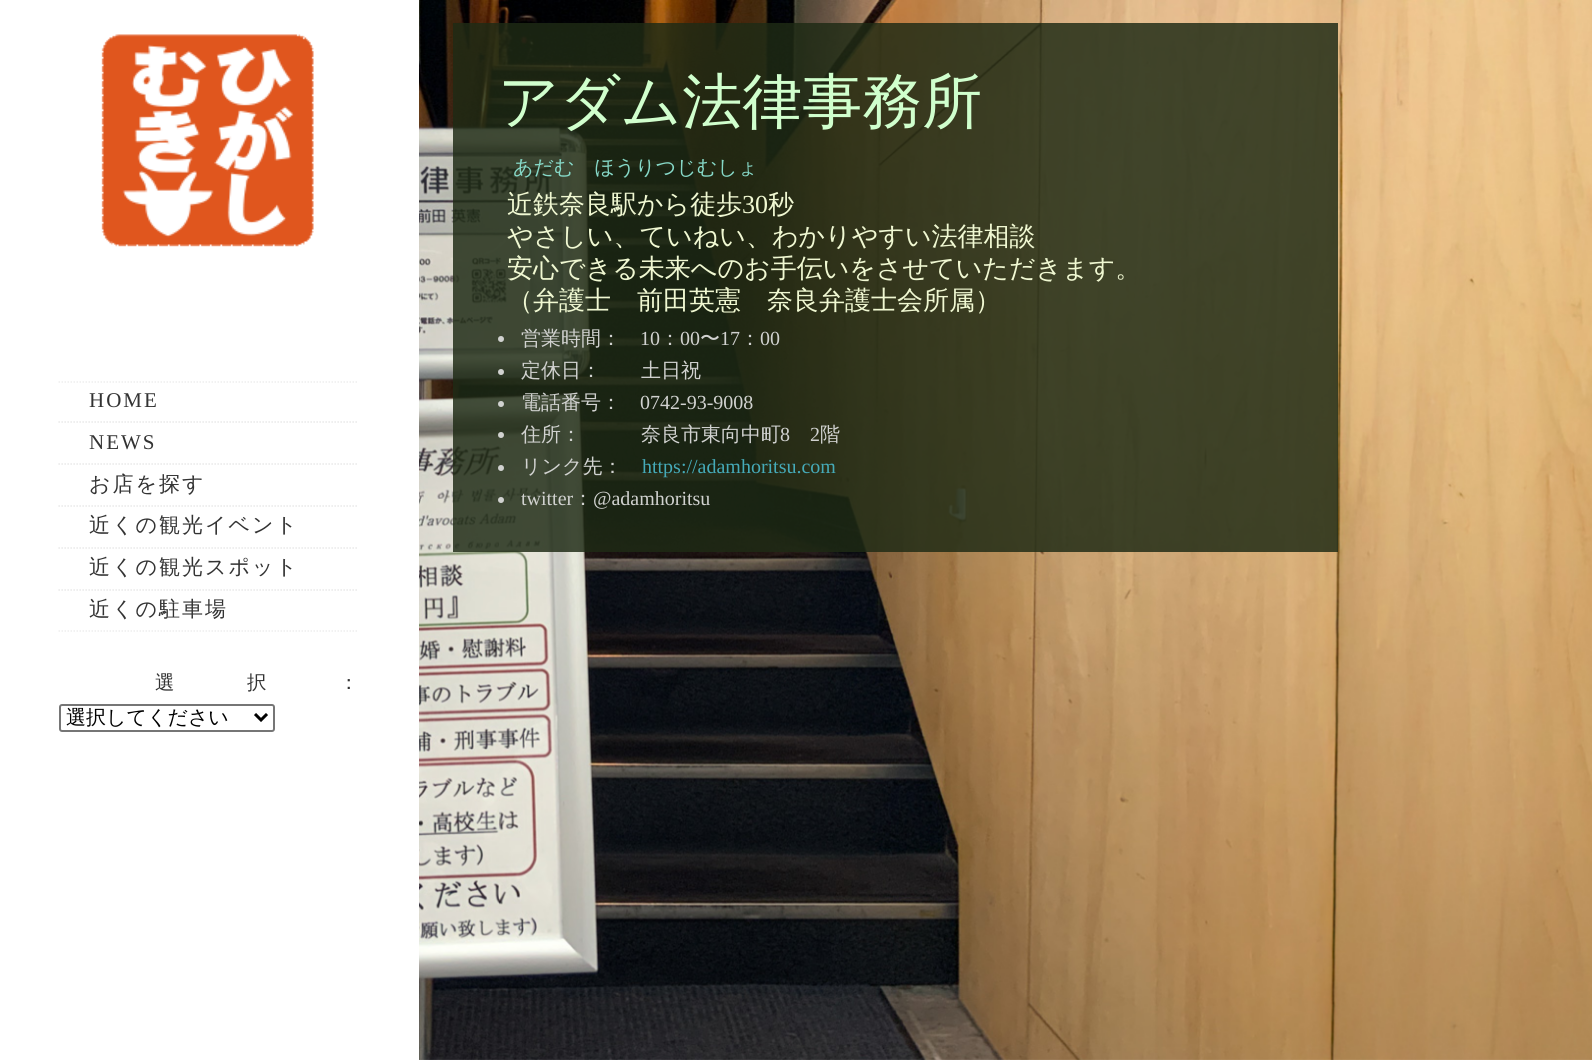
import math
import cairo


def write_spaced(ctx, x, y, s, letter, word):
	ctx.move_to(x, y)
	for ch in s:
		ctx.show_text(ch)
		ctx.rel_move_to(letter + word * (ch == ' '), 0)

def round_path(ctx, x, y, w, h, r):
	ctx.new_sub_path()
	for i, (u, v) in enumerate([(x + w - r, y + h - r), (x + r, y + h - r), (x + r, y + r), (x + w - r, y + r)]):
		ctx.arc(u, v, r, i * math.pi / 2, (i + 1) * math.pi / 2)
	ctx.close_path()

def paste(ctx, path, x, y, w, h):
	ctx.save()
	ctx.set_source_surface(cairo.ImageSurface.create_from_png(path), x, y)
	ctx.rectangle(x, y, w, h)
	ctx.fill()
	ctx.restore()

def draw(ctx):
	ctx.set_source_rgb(1, 1, 1)
	ctx.paint()
	paste(ctx, 'media/1.png', 419, 0, 1173, 1060)
	ctx.set_source_rgba(0.122, 0.169, 0.082, 0.83)
	ctx.rectangle(453, 23, 885, 529)
	ctx.fill()
	ctx.select_font_face('WenQuanYi Zen Hei Medium')
	ctx.set_font_size(60)
	ctx.set_source_rgb(0.816, 1, 0.804)
	ctx.move_to(498, 122)
	ctx.show_text('アダム法律事務所')
	ctx.set_font_size(20)
	ctx.set_source_rgb(0.525, 0.851, 0.784)
	ctx.move_to(513, 174)
	ctx.show_text('あだむ　ほうりつじむしょ')
	ctx.set_font_size(26)
	ctx.set_source_rgb(0.941, 0.969, 0.824)
	ctx.move_to(507, 213)
	ctx.show_text('近鉄奈良駅から徒歩')
	ctx.select_font_face('Liberation Serif')
	ctx.move_to(742, 213)
	ctx.show_text('30')
	ctx.select_font_face('WenQuanYi Zen Hei Medium')
	for x, y, s in [
		(768, 213, '秒'),
		(507, 245, 'やさしい、ていねい、わかりやすい法律相談'),
		(507, 277, '安心できる未来へのお手伝いをさせていただきます。'),
		(507, 309, '（弁護士　前田英憲　奈良弁護士会所属）'),
	]:
		ctx.move_to(x, y)
		ctx.show_text(s)
	ctx.set_source_rgb(0.82, 0.824, 0.816)
	ctx.new_path()
	ctx.arc(501, 339, 3, 0, 2 * math.pi)
	ctx.fill()
	ctx.set_font_size(20)
	ctx.move_to(521, 345)
	ctx.show_text('営業時間：')
	ctx.select_font_face('Liberation Serif')
	ctx.move_to(640, 345)
	ctx.show_text('10')
	ctx.select_font_face('WenQuanYi Zen Hei Medium')
	ctx.move_to(660, 345)
	ctx.show_text('：')
	ctx.select_font_face('Liberation Serif')
	ctx.move_to(680, 345)
	ctx.show_text('00')
	ctx.select_font_face('WenQuanYi Zen Hei Medium')
	ctx.move_to(700, 345)
	ctx.show_text('〜')
	ctx.select_font_face('Liberation Serif')
	ctx.move_to(720, 345)
	ctx.show_text('17')
	ctx.select_font_face('WenQuanYi Zen Hei Medium')
	ctx.move_to(740, 345)
	ctx.show_text('：')
	ctx.select_font_face('Liberation Serif')
	ctx.move_to(760, 345)
	ctx.show_text('00')
	ctx.new_path()
	ctx.arc(501, 372, 3, 0, 2 * math.pi)
	ctx.fill()
	ctx.select_font_face('WenQuanYi Zen Hei Medium')
	ctx.move_to(521, 377)
	ctx.show_text('定休日：　　土日祝')
	ctx.new_path()
	ctx.arc(501, 404, 3, 0, 2 * math.pi)
	ctx.fill()
	ctx.move_to(521, 409)
	ctx.show_text('電話番号：')
	ctx.select_font_face('Liberation Serif')
	ctx.move_to(640, 409)
	ctx.show_text('0742-93-9008')
	ctx.new_path()
	ctx.arc(501, 435, 3, 0, 2 * math.pi)
	ctx.fill()
	ctx.select_font_face('WenQuanYi Zen Hei Medium')
	ctx.move_to(521, 441)
	ctx.show_text('住所：　　　奈良市東向中町')
	ctx.select_font_face('Liberation Serif')
	ctx.move_to(780, 441)
	ctx.show_text('8')
	ctx.move_to(810, 441)
	ctx.show_text('2')
	ctx.select_font_face('WenQuanYi Zen Hei Medium')
	ctx.move_to(820, 441)
	ctx.show_text('階')
	ctx.new_path()
	ctx.arc(501, 468, 3, 0, 2 * math.pi)
	ctx.fill()
	ctx.move_to(521, 473)
	ctx.show_text('リンク先：')
	ctx.select_font_face('Liberation Serif')
	ctx.set_source_rgb(0.271, 0.667, 0.722)
	ctx.move_to(642, 473)
	ctx.show_text('https://adamhoritsu.com')
	ctx.set_source_rgb(0.82, 0.824, 0.816)
	ctx.new_path()
	ctx.arc(501, 500, 3, 0, 2 * math.pi)
	ctx.fill()
	ctx.move_to(521, 505)
	ctx.show_text('twitter')
	ctx.select_font_face('WenQuanYi Zen Hei Medium')
	ctx.move_to(573, 505)
	ctx.show_text('：')
	ctx.select_font_face('Liberation Serif')
	ctx.move_to(593, 505)
	ctx.show_text('@adamhoritsu')
	paste(ctx, 'media/2.png', 101, 34, 213, 213)
	ctx.new_path()
	ctx.move_to(58.5, 382)
	ctx.line_to(358.5, 382)
	ctx.set_source_rgb(0.933, 0.933, 0.933)
	ctx.set_line_width(1.5)
	ctx.set_dash([1.5, 1.5])
	ctx.stroke()
	ctx.new_path()
	ctx.move_to(58.5, 422)
	ctx.line_to(358.5, 422)
	ctx.stroke()
	ctx.set_font_size(21)
	ctx.set_source_rgb(0.2, 0.2, 0.2)
	write_spaced(ctx, 89, 407, 'HOME', 2, 0)
	ctx.new_path()
	ctx.move_to(58.5, 422)
	ctx.line_to(358.5, 422)
	ctx.set_source_rgb(0.933, 0.933, 0.933)
	ctx.stroke()
	ctx.new_path()
	ctx.move_to(58.5, 464)
	ctx.line_to(358.5, 464)
	ctx.stroke()
	ctx.set_source_rgb(0.2, 0.2, 0.2)
	write_spaced(ctx, 89, 449, 'NEWS', 2, 0)
	ctx.new_path()
	ctx.move_to(58.5, 464)
	ctx.line_to(358.5, 464)
	ctx.set_source_rgb(0.933, 0.933, 0.933)
	ctx.stroke()
	ctx.new_path()
	ctx.move_to(58.5, 506)
	ctx.line_to(358.5, 506)
	ctx.stroke()
	ctx.select_font_face('WenQuanYi Zen Hei Medium')
	ctx.set_source_rgb(0.2, 0.2, 0.2)
	write_spaced(ctx, 89, 491, 'お店を探す', 2, 0)
	ctx.new_path()
	ctx.move_to(58.5, 506)
	ctx.line_to(358.5, 506)
	ctx.set_source_rgb(0.933, 0.933, 0.933)
	ctx.stroke()
	ctx.new_path()
	ctx.move_to(58.5, 548)
	ctx.line_to(358.5, 548)
	ctx.stroke()
	ctx.set_source_rgb(0.2, 0.2, 0.2)
	write_spaced(ctx, 89, 532, '近くの観光イベント', 2, 0)
	ctx.new_path()
	ctx.move_to(58.5, 548)
	ctx.line_to(358.5, 548)
	ctx.set_source_rgb(0.933, 0.933, 0.933)
	ctx.stroke()
	ctx.new_path()
	ctx.move_to(58.5, 590)
	ctx.line_to(358.5, 590)
	ctx.stroke()
	ctx.set_source_rgb(0.2, 0.2, 0.2)
	write_spaced(ctx, 89, 574, '近くの観光スポット', 2, 0)
	ctx.new_path()
	ctx.move_to(58.5, 590)
	ctx.line_to(358.5, 590)
	ctx.set_source_rgb(0.933, 0.933, 0.933)
	ctx.stroke()
	ctx.new_path()
	ctx.move_to(58.5, 631)
	ctx.line_to(358.5, 631)
	ctx.stroke()
	ctx.set_source_rgb(0.2, 0.2, 0.2)
	write_spaced(ctx, 89, 616, '近くの駐車場', 2, 0)
	ctx.set_font_size(19.5)
	write_spaced(ctx, 155, 689, '選択：', 72.5, 0)
	round_path(ctx, 60, 705, 214, 26, 2)
	ctx.set_source_rgb(0.463, 0.463, 0.463)
	ctx.set_line_width(2)
	ctx.set_dash([])
	ctx.stroke()
	ctx.new_path()
	ctx.move_to(255, 714)
	ctx.line_to(261, 720)
	ctx.line_to(267, 714)
	ctx.set_source_rgb(0, 0, 0)
	ctx.set_line_width(3)
	ctx.stroke()
	ctx.set_font_size(20)
	ctx.move_to(66, 724)
	ctx.show_text('選択してください')


surface = cairo.ImageSurface(cairo.FORMAT_RGB24, 1592, 1060)
ctx = cairo.Context(surface)
options = cairo.FontOptions()
options.set_hint_metrics(cairo.HINT_METRICS_OFF)
options.set_hint_style(cairo.HINT_STYLE_NONE)
ctx.set_font_options(options)
ctx.set_miter_limit(4)
draw(ctx)
surface.write_to_png('image.png')
